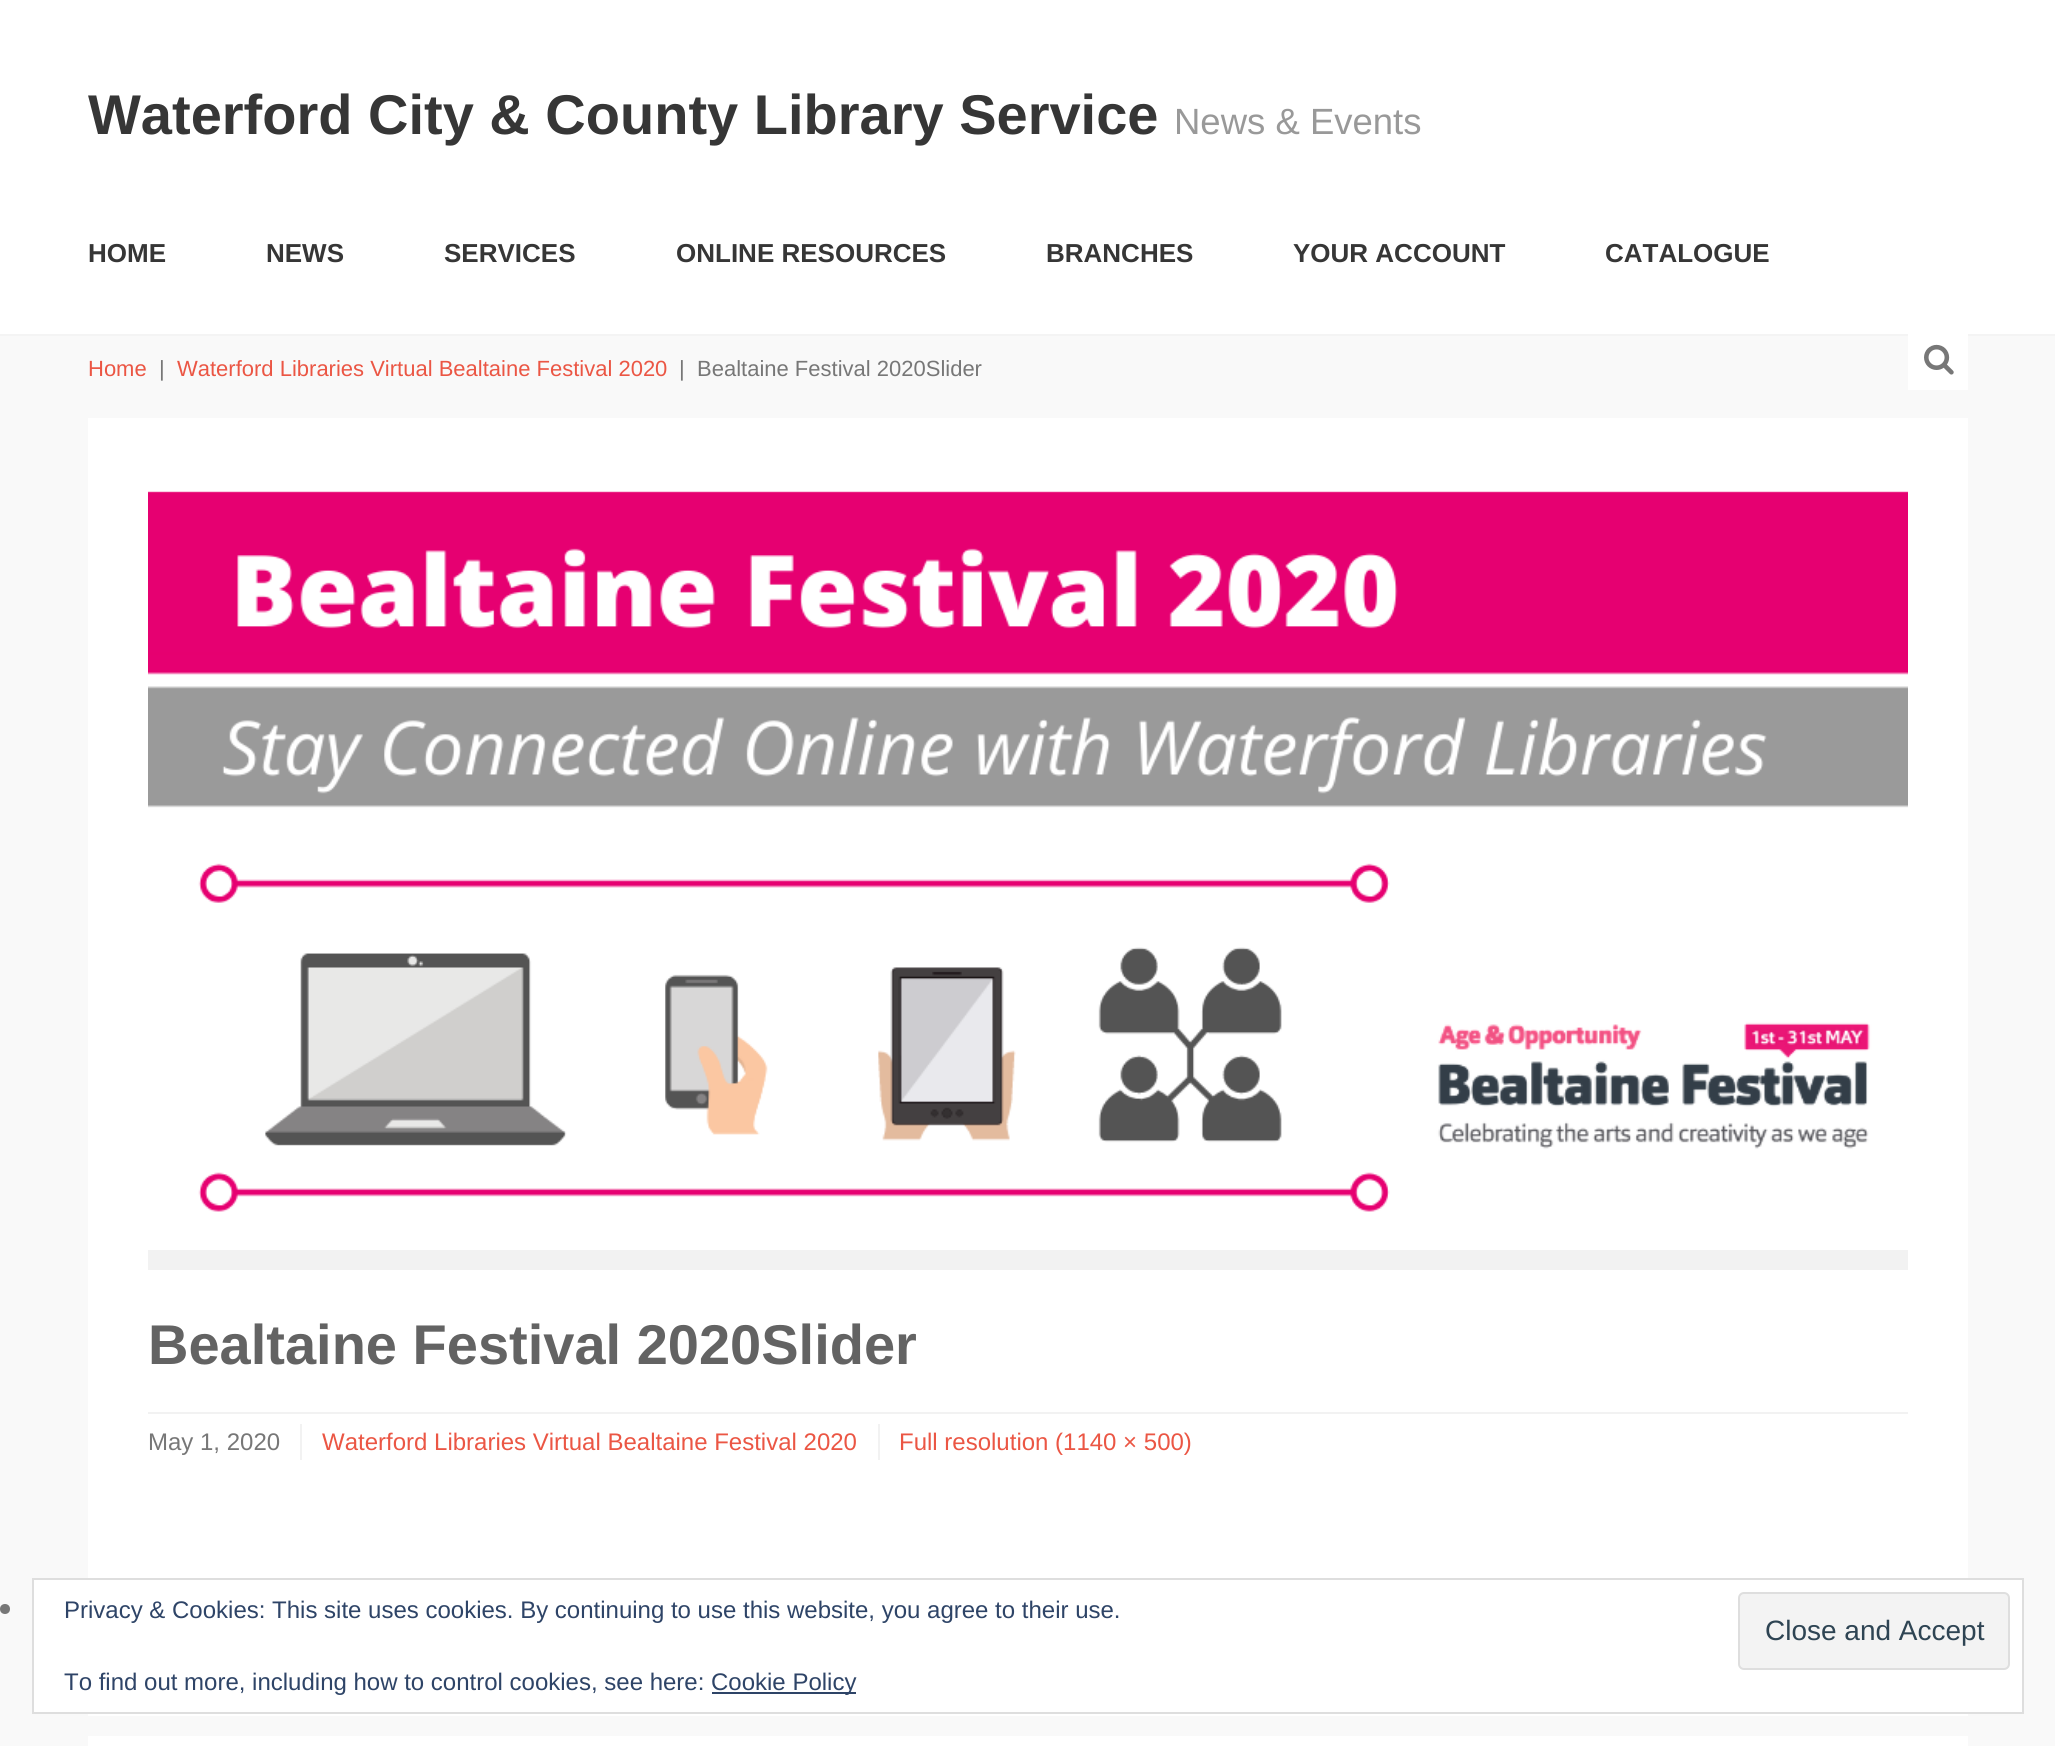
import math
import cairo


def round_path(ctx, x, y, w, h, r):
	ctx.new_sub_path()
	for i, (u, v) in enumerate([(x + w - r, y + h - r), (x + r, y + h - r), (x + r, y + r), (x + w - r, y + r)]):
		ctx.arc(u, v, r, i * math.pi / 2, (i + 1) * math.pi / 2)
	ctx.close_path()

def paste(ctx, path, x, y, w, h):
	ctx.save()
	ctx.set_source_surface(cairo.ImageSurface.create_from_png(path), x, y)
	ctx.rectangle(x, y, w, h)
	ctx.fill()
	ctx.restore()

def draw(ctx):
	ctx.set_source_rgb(1, 1, 1)
	ctx.paint()
	ctx.select_font_face('Liberation Sans', cairo.FONT_SLANT_NORMAL, cairo.FONT_WEIGHT_BOLD)
	ctx.set_font_size(56)
	ctx.set_source_rgb(0.212, 0.212, 0.212)
	ctx.move_to(88, 134)
	ctx.show_text('Waterford City & County Library Service')
	ctx.select_font_face('Liberation Sans')
	ctx.set_font_size(36.5)
	ctx.set_source_rgb(0.6, 0.6, 0.6)
	ctx.move_to(1174, 134)
	ctx.show_text('News & Events')
	ctx.select_font_face('Liberation Sans', cairo.FONT_SLANT_NORMAL, cairo.FONT_WEIGHT_BOLD)
	ctx.set_font_size(26)
	ctx.set_source_rgb(0.212, 0.212, 0.212)
	for x, y, s in [
		(88, 262, 'HOME'),
		(266, 262, 'NEWS'),
		(444, 262, 'SERVICES'),
		(676, 262, 'ONLINE RESOURCES'),
		(1046, 262, 'BRANCHES'),
		(1293, 262, 'YOUR ACCOUNT'),
		(1605, 262, 'CATALOGUE'),
	]:
		ctx.move_to(x, y)
		ctx.show_text(s)
	ctx.set_source_rgb(0.976, 0.976, 0.976)
	ctx.rectangle(0, 336, 2055, 1410)
	ctx.fill()
	ctx.set_source_rgb(0.957, 0.957, 0.957)
	ctx.rectangle(0, 334, 2055, 2)
	ctx.fill()
	ctx.select_font_face('Liberation Sans')
	ctx.set_font_size(22)
	ctx.set_source_rgb(0.918, 0.337, 0.267)
	ctx.move_to(88, 376)
	ctx.show_text('Home')
	ctx.set_source_rgb(0.467, 0.467, 0.467)
	ctx.move_to(159, 376)
	ctx.show_text('|')
	ctx.set_source_rgb(0.918, 0.337, 0.267)
	ctx.move_to(177, 376)
	ctx.show_text('Waterford Libraries Virtual Bealtaine Festival 2020')
	ctx.set_source_rgb(0.467, 0.467, 0.467)
	ctx.move_to(679, 376)
	ctx.show_text('|')
	ctx.move_to(697, 376)
	ctx.show_text('Bealtaine Festival 2020Slider')
	ctx.set_source_rgb(1, 1, 1)
	ctx.rectangle(1908, 334, 60, 56)
	ctx.fill()
	paste(ctx, 'media/1.png', 1924, 344, 30, 31)
	ctx.rectangle(88, 418, 1880, 1328)
	ctx.fill()
	ctx.set_source_rgb(0.949, 0.949, 0.949)
	ctx.rectangle(148, 1250, 1760, 20)
	ctx.fill()
	paste(ctx, 'media/2.png', 148, 491, 1760, 721)
	ctx.rectangle(148, 1412, 1760, 2)
	ctx.fill()
	ctx.select_font_face('Liberation Sans', cairo.FONT_SLANT_NORMAL, cairo.FONT_WEIGHT_BOLD)
	ctx.set_font_size(56)
	ctx.set_source_rgb(0.388, 0.388, 0.388)
	ctx.move_to(148, 1364)
	ctx.show_text('Bealtaine Festival 2020Slider')
	ctx.set_source_rgb(0.949, 0.949, 0.949)
	ctx.rectangle(300, 1424, 2, 36)
	ctx.fill()
	ctx.select_font_face('Liberation Sans')
	ctx.set_font_size(24)
	ctx.set_source_rgb(0.467, 0.467, 0.467)
	ctx.move_to(148, 1450)
	ctx.show_text('May 1, 2020')
	ctx.set_source_rgb(0.949, 0.949, 0.949)
	ctx.rectangle(878, 1424, 2, 36)
	ctx.fill()
	ctx.set_source_rgb(0.918, 0.337, 0.267)
	ctx.move_to(322, 1450)
	ctx.show_text('Waterford Libraries Virtual Bealtaine Festival 2020')
	ctx.move_to(899, 1450)
	ctx.show_text('Full resolution (1140 × 500)')
	ctx.set_source_rgb(0.976, 0.976, 0.976)
	ctx.rectangle(88, 1716, 1880, 20)
	ctx.fill()
	ctx.set_source_rgb(0.467, 0.467, 0.467)
	ctx.arc(5, 1609, 5, 0, 2 * math.pi)
	ctx.fill()
	ctx.set_source_rgb(1, 1, 1)
	ctx.rectangle(33, 1579, 1990, 134)
	ctx.fill_preserve()
	ctx.set_source_rgb(0.871, 0.871, 0.871)
	ctx.stroke()
	ctx.set_source_rgb(0.18, 0.267, 0.404)
	ctx.move_to(64, 1618)
	ctx.show_text('Privacy & Cookies: This site uses cookies. By continuing to use this website, you agree to their use.')
	ctx.set_source_rgb(0.953, 0.953, 0.953)
	round_path(ctx, 1739, 1593, 270, 76, 5)
	ctx.fill_preserve()
	ctx.set_source_rgb(0.871, 0.871, 0.871)
	ctx.stroke()
	ctx.set_font_size(28)
	ctx.set_source_rgb(0.18, 0.267, 0.325)
	ctx.move_to(1765, 1640)
	ctx.show_text('Close and Accept')
	ctx.set_font_size(24)
	ctx.set_source_rgb(0.18, 0.267, 0.404)
	ctx.move_to(64, 1690)
	ctx.show_text('To find out more, including how to control cookies, see here:')
	ctx.rectangle(712, 1692, 144, 2)
	ctx.fill()
	ctx.move_to(711, 1690)
	ctx.show_text('Cookie Policy')


surface = cairo.ImageSurface(cairo.FORMAT_RGB24, 2055, 1746)
ctx = cairo.Context(surface)
options = cairo.FontOptions()
options.set_hint_metrics(cairo.HINT_METRICS_OFF)
options.set_hint_style(cairo.HINT_STYLE_NONE)
ctx.set_font_options(options)
ctx.set_miter_limit(4)
draw(ctx)
surface.write_to_png('image.png')
